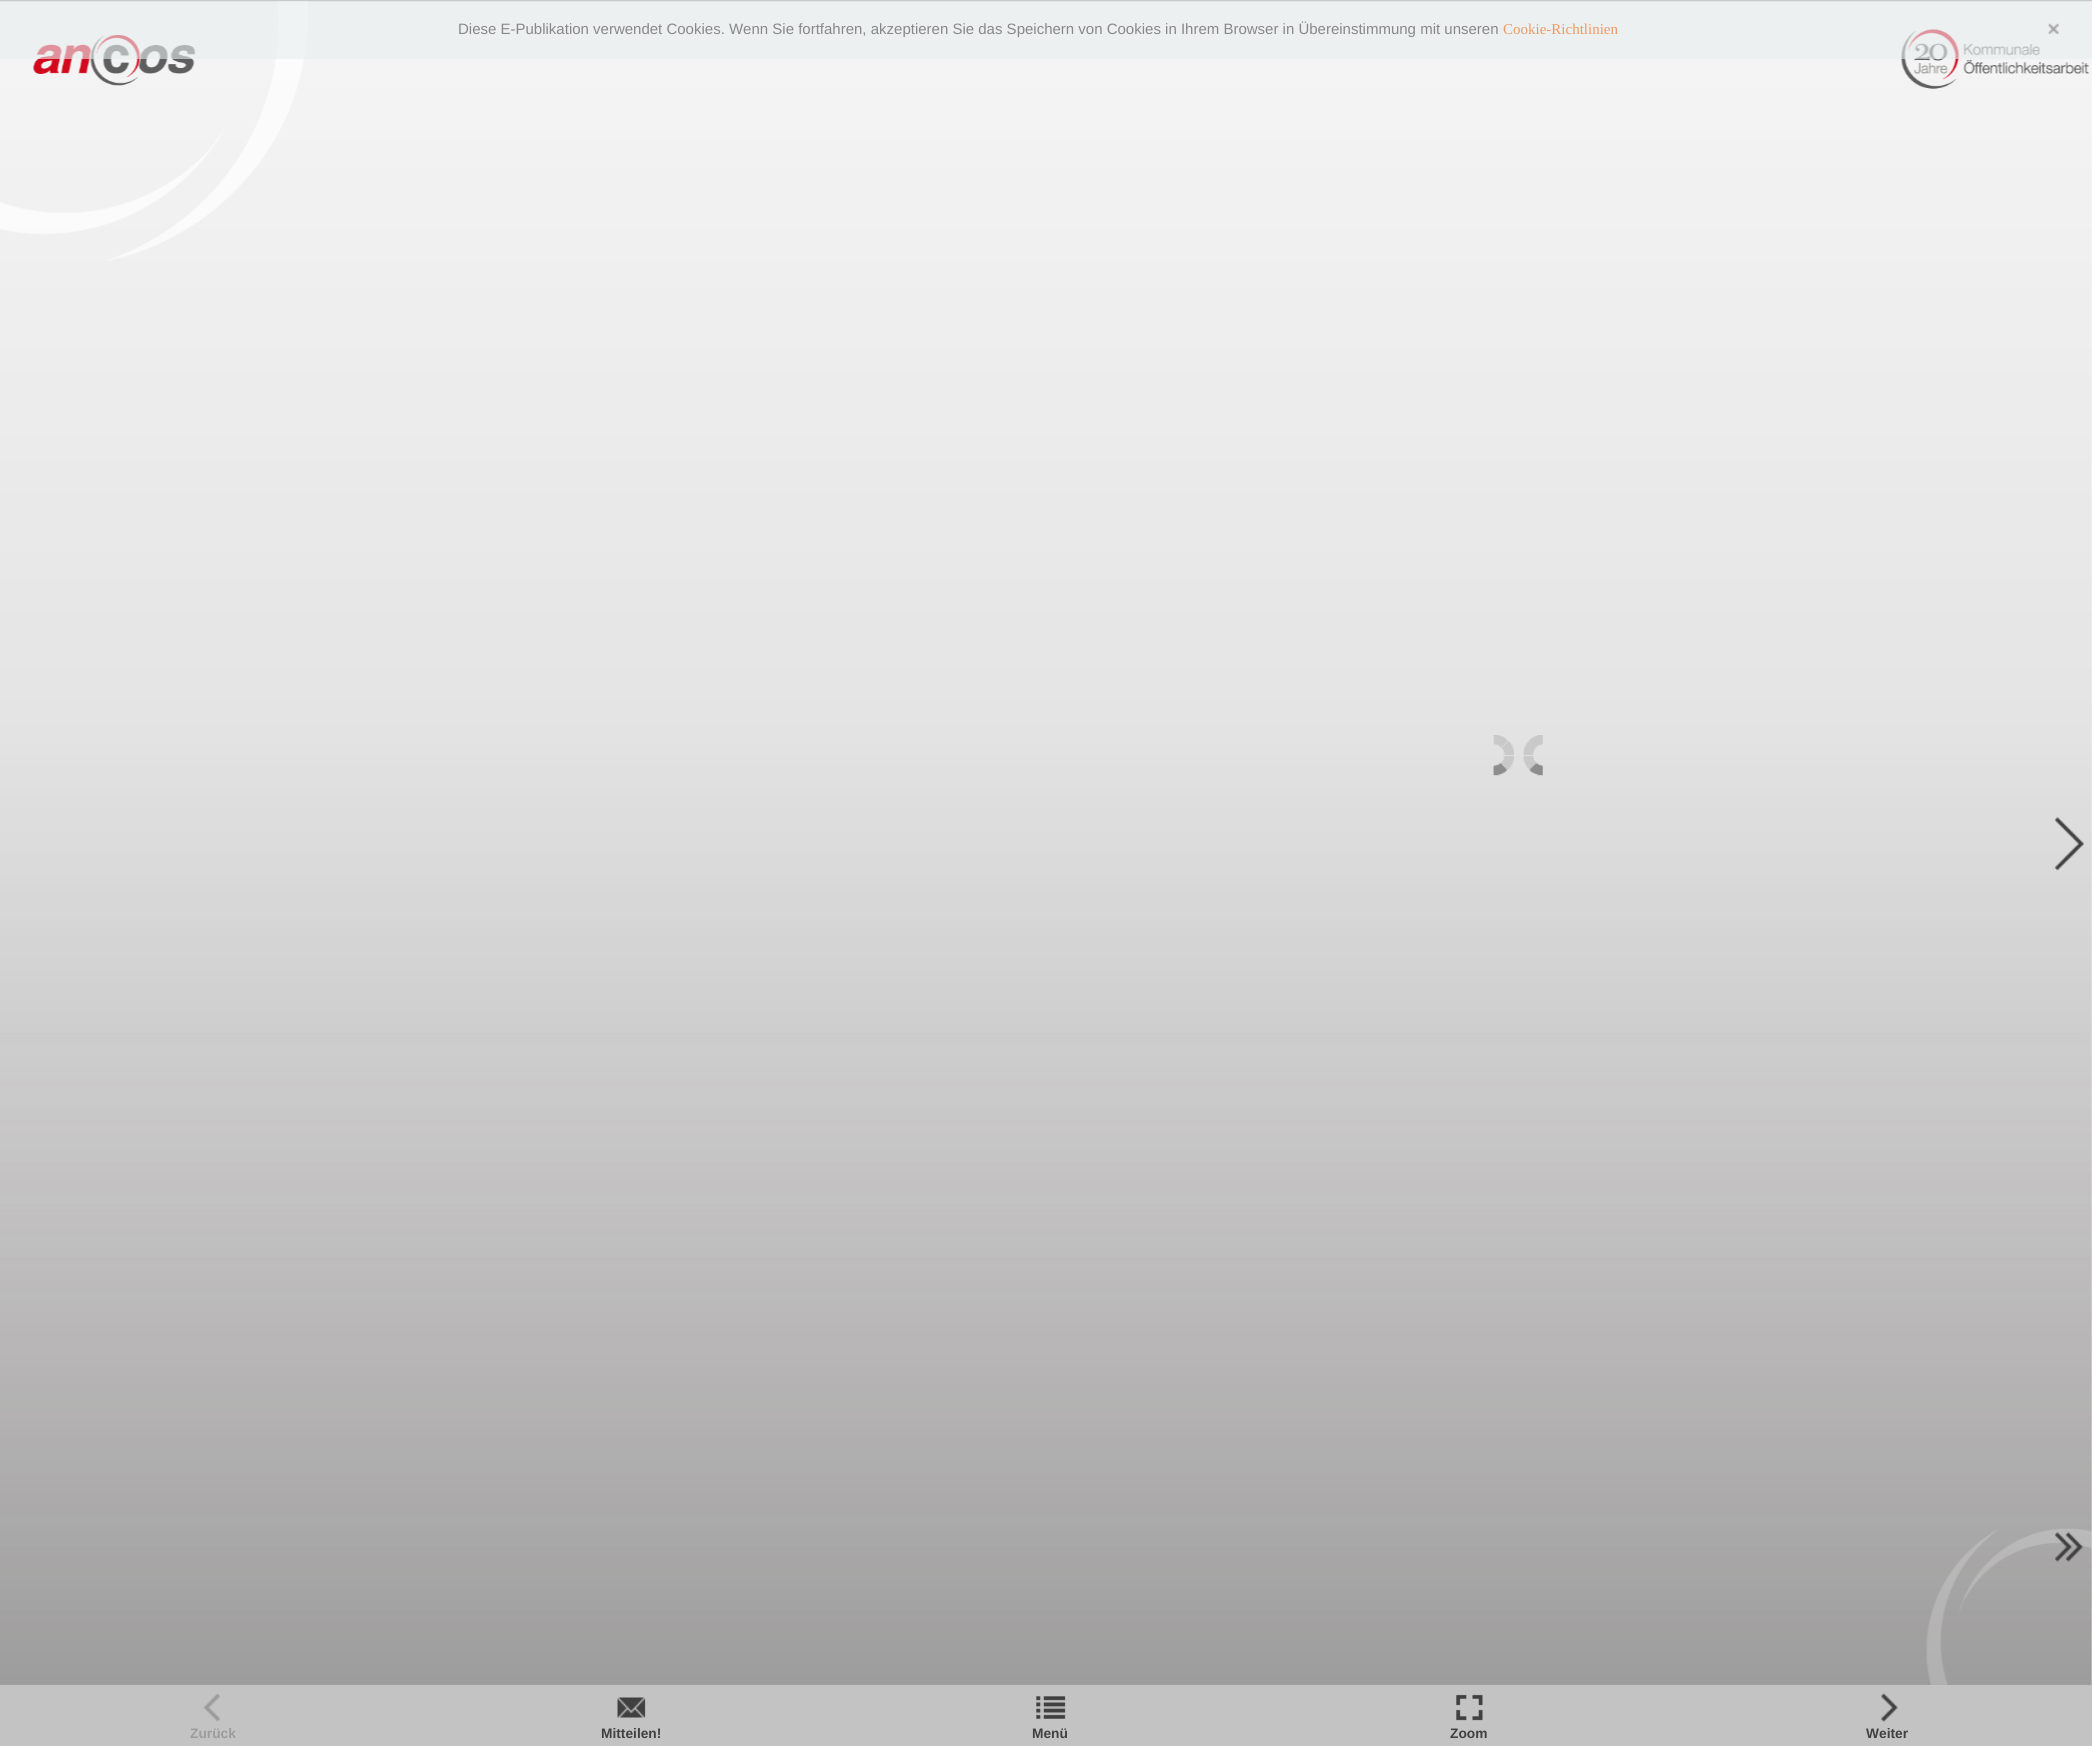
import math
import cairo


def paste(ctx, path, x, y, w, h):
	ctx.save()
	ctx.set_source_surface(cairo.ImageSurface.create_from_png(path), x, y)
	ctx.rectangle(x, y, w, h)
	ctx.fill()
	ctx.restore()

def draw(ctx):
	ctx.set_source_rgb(0.6, 0.6, 0.6)
	ctx.paint()
	paste(ctx, 'media/4.png', 0, 1, 2092, 1684)
	paste(ctx, 'media/7.png', 33, 35, 163, 51)
	paste(ctx, 'media/5.png', 0, 1, 308, 260)
	paste(ctx, 'media/6.png', 1901, 29, 189, 60)
	ctx.set_source_rgba(0.91, 0.925, 0.937, 0.6)
	ctx.rectangle(0, 0, 2092, 59)
	ctx.fill()
	ctx.select_font_face('Liberation Sans')
	ctx.set_font_size(15)
	ctx.set_source_rgb(0.533, 0.533, 0.533)
	ctx.move_to(458, 34)
	ctx.show_text('Diese E-Publikation verwendet Cookies. Wenn Sie fortfahren, akzeptieren Sie das Speichern von Cookies in Ihrem Browser in Übereinstimmung mit unseren')
	ctx.select_font_face('Liberation Serif')
	ctx.set_source_rgb(0.922, 0.604, 0.392)
	ctx.move_to(1503, 34)
	ctx.show_text('Cookie-Richtlinien')
	paste(ctx, 'media/1.png', 2048, 23, 11, 11)
	paste(ctx, 'media/2.png', 2054, 817, 30, 54)
	paste(ctx, 'media/8.png', 1926, 1528, 166, 157)
	paste(ctx, 'media/3.png', 2054, 1532, 29, 30)
	paste(ctx, 'media/9.png', 1493, 735, 50, 41)
	paste(ctx, 'media/10.png', 1493, 735, 50, 41)
	ctx.set_source_rgb(0.765, 0.765, 0.765)
	ctx.rectangle(0, 1685, 2092, 61)
	ctx.fill()
	paste(ctx, 'media/11.png', 203, 1693, 17, 29)
	ctx.select_font_face('Liberation Sans', cairo.FONT_SLANT_NORMAL, cairo.FONT_WEIGHT_BOLD)
	ctx.set_font_size(13.75)
	ctx.set_source_rgb(0.612, 0.612, 0.612)
	ctx.move_to(190, 1738)
	ctx.show_text('Zurück')
	paste(ctx, 'media/12.png', 617, 1697, 29, 21)
	ctx.set_source_rgb(0.251, 0.251, 0.251)
	ctx.move_to(601, 1738)
	ctx.show_text('Mitteilen!')
	paste(ctx, 'media/13.png', 1036, 1696, 30, 23)
	ctx.move_to(1032, 1738)
	ctx.show_text('Menü')
	paste(ctx, 'media/14.png', 1456, 1694, 27, 27)
	ctx.move_to(1450, 1738)
	ctx.show_text('Zoom')
	paste(ctx, 'media/15.png', 1881, 1693, 17, 29)
	ctx.move_to(1866, 1738)
	ctx.show_text('Weiter')


surface = cairo.ImageSurface(cairo.FORMAT_RGB24, 2092, 1746)
ctx = cairo.Context(surface)
options = cairo.FontOptions()
options.set_hint_metrics(cairo.HINT_METRICS_OFF)
options.set_hint_style(cairo.HINT_STYLE_NONE)
ctx.set_font_options(options)
ctx.set_miter_limit(4)
draw(ctx)
surface.write_to_png('image.png')
